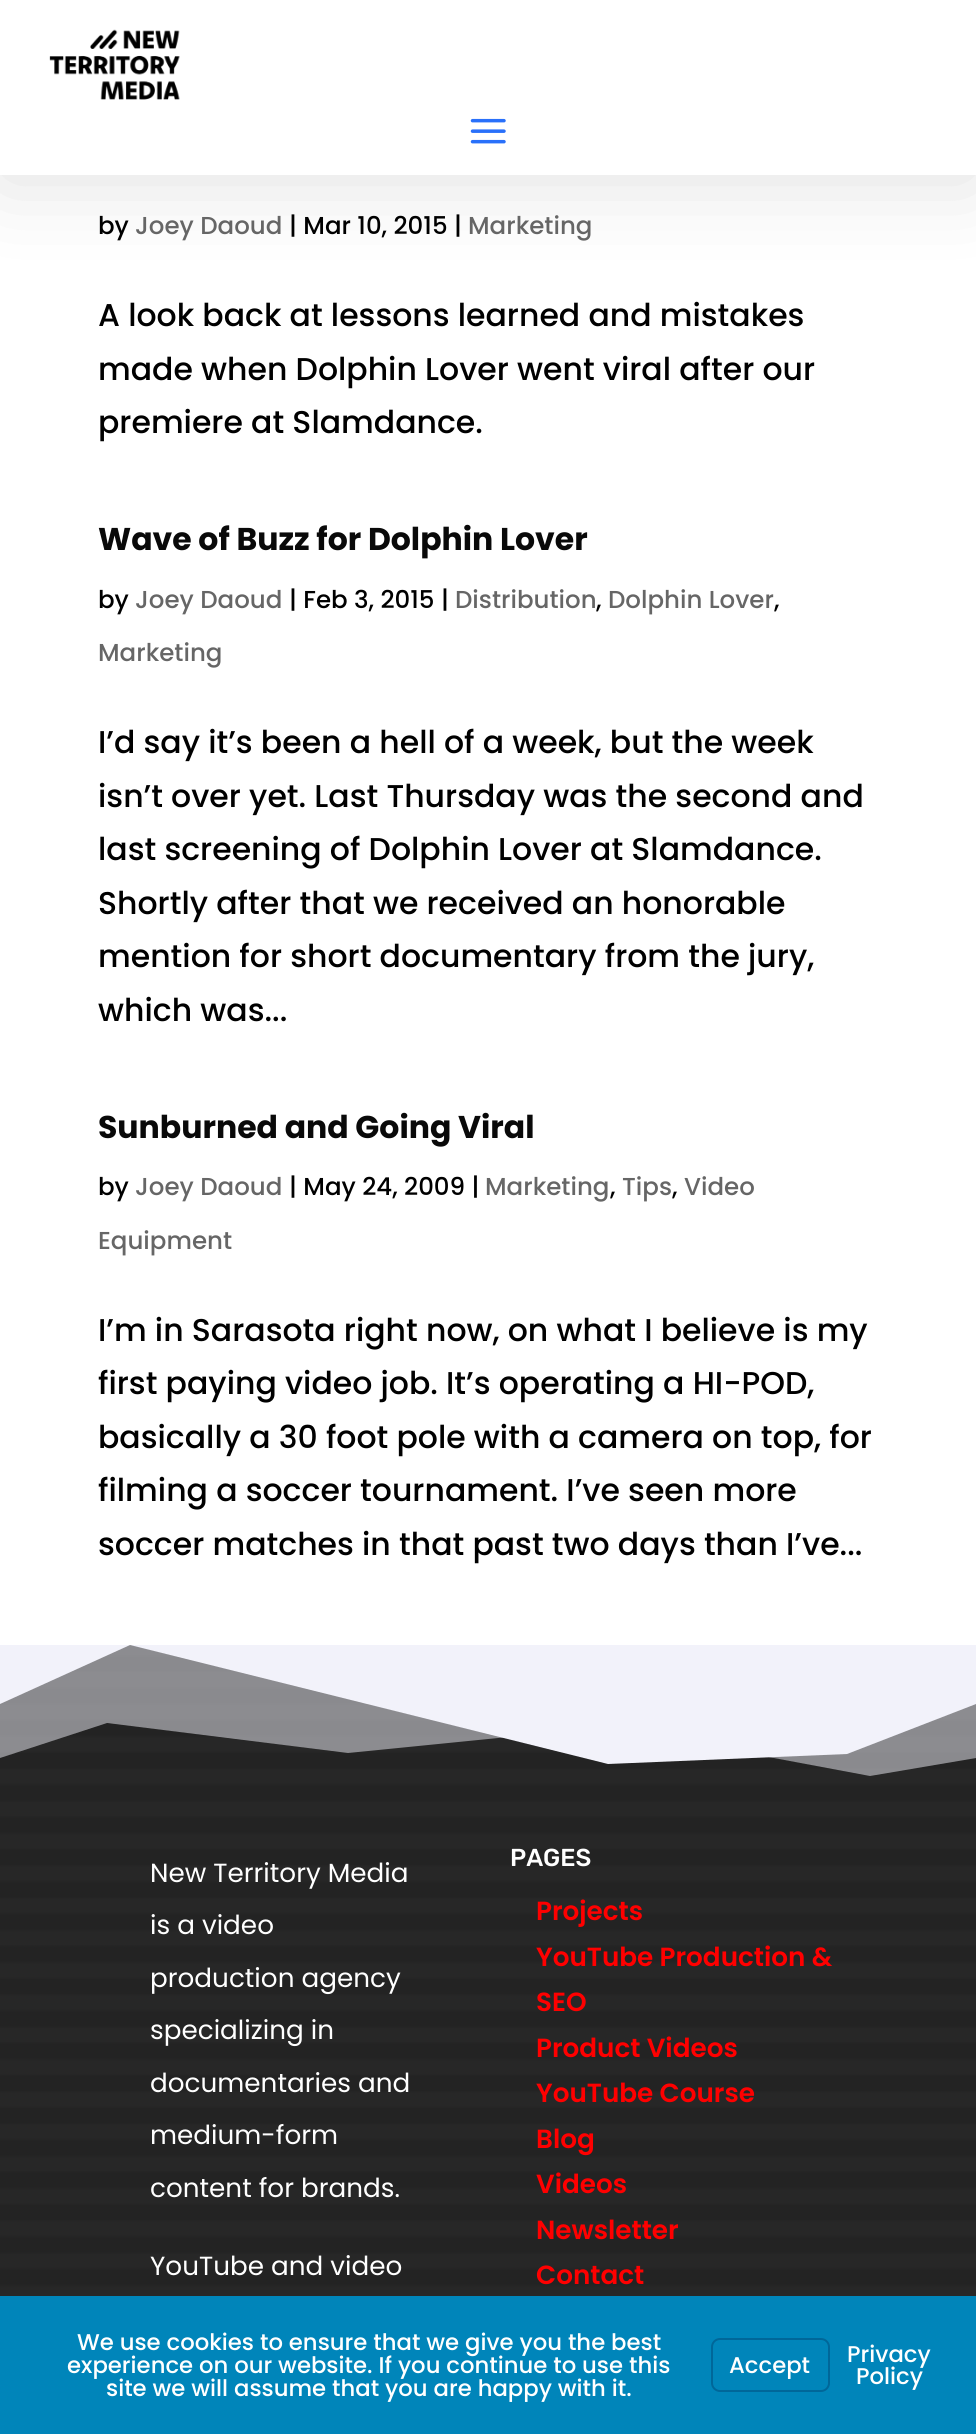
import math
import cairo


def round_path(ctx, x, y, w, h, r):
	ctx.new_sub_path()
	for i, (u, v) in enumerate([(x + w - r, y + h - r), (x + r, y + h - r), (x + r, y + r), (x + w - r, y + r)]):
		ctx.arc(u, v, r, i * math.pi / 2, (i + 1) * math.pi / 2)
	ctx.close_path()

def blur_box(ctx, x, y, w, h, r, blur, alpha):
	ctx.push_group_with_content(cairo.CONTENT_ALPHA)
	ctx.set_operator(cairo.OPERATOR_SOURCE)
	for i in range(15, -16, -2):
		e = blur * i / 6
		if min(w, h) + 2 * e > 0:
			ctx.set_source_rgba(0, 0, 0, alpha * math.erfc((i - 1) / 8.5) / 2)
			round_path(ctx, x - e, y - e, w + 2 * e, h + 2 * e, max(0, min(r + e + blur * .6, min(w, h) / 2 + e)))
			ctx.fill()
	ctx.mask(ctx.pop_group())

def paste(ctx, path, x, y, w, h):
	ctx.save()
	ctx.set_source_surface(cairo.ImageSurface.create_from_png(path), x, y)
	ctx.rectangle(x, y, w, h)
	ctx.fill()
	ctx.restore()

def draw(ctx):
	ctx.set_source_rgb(1, 1, 1)
	ctx.paint()
	ctx.set_source_rgb(0, 0, 0)
	blur_box(ctx, 0, 4, 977, 175, 0, 44, 0.13)
	ctx.set_source_rgb(1, 1, 1)
	ctx.rectangle(0, 0, 976, 175)
	ctx.fill()
	paste(ctx, 'media/1.png', 49, 29, 131, 71)
	paste(ctx, 'media/2.png', 470, 118, 36, 26)
	ctx.select_font_face('Poppins Medium')
	ctx.set_font_size(24.5)
	ctx.set_source_rgb(0, 0, 0)
	ctx.move_to(98, 234)
	ctx.show_text('by')
	ctx.set_source_rgb(0.4, 0.4, 0.4)
	ctx.move_to(135, 234)
	ctx.show_text('Joey Daoud')
	ctx.set_source_rgb(0, 0, 0)
	ctx.move_to(289, 234)
	ctx.show_text('| Mar 10, 2015 |')
	ctx.set_source_rgb(0.4, 0.4, 0.4)
	ctx.move_to(468, 234)
	ctx.show_text('Marketing')
	ctx.set_font_size(31.5)
	ctx.set_source_rgb(0, 0, 0)
	for x, y, s in [
		(98, 326, 'A look back at lessons learned and mistakes'),
		(98, 380, 'made when Dolphin Lover went viral after our'),
		(98, 433, 'premiere at Slamdance.'),
	]:
		ctx.move_to(x, y)
		ctx.show_text(s)
	ctx.select_font_face('Poppins', cairo.FONT_SLANT_NORMAL, cairo.FONT_WEIGHT_BOLD)
	ctx.set_source_rgb(0.039, 0.039, 0.039)
	ctx.move_to(98, 550)
	ctx.show_text('Wave of Buzz for Dolphin Lover')
	ctx.select_font_face('Poppins Medium')
	ctx.set_font_size(24.5)
	ctx.set_source_rgb(0, 0, 0)
	ctx.move_to(98, 608)
	ctx.show_text('by')
	ctx.set_source_rgb(0.4, 0.4, 0.4)
	ctx.move_to(135, 608)
	ctx.show_text('Joey Daoud')
	ctx.set_source_rgb(0, 0, 0)
	ctx.move_to(289, 608)
	ctx.show_text('| Feb 3, 2015 |')
	ctx.set_source_rgb(0.4, 0.4, 0.4)
	ctx.move_to(455, 608)
	ctx.show_text('Distribution')
	ctx.set_source_rgb(0, 0, 0)
	ctx.move_to(596, 608)
	ctx.show_text(',')
	ctx.set_source_rgb(0.4, 0.4, 0.4)
	ctx.move_to(608, 608)
	ctx.show_text('Dolphin Lover')
	ctx.set_source_rgb(0, 0, 0)
	ctx.move_to(774, 608)
	ctx.show_text(',')
	ctx.set_source_rgb(0.4, 0.4, 0.4)
	ctx.move_to(98, 661)
	ctx.show_text('Marketing')
	ctx.set_font_size(31.5)
	ctx.set_source_rgb(0, 0, 0)
	for x, y, s in [
		(98, 753, 'I’d say it’s been a hell of a week, but the week'),
		(98, 807, 'isn’t over yet. Last Thursday was the second and'),
		(98, 860, 'last screening of Dolphin Lover at Slamdance.'),
		(98, 914, 'Shortly after that we received an honorable'),
		(98, 967, 'mention for short documentary from the jury,'),
		(98, 1021, 'which was...'),
	]:
		ctx.move_to(x, y)
		ctx.show_text(s)
	ctx.select_font_face('Poppins', cairo.FONT_SLANT_NORMAL, cairo.FONT_WEIGHT_BOLD)
	ctx.set_source_rgb(0.039, 0.039, 0.039)
	ctx.move_to(98, 1138)
	ctx.show_text('Sunburned and Going Viral')
	ctx.select_font_face('Poppins Medium')
	ctx.set_font_size(24.5)
	ctx.set_source_rgb(0, 0, 0)
	ctx.move_to(98, 1195)
	ctx.show_text('by')
	ctx.set_source_rgb(0.4, 0.4, 0.4)
	ctx.move_to(135, 1195)
	ctx.show_text('Joey Daoud')
	ctx.set_source_rgb(0, 0, 0)
	ctx.move_to(289, 1195)
	ctx.show_text('| May 24, 2009 |')
	ctx.set_source_rgb(0.4, 0.4, 0.4)
	ctx.move_to(485, 1195)
	ctx.show_text('Marketing')
	ctx.set_source_rgb(0, 0, 0)
	ctx.move_to(610, 1195)
	ctx.show_text(',')
	ctx.set_source_rgb(0.4, 0.4, 0.4)
	ctx.move_to(622, 1195)
	ctx.show_text('Tips')
	ctx.set_source_rgb(0, 0, 0)
	ctx.move_to(672, 1195)
	ctx.show_text(',')
	ctx.set_source_rgb(0.4, 0.4, 0.4)
	ctx.move_to(684, 1195)
	ctx.show_text('Video')
	ctx.move_to(98, 1249)
	ctx.show_text('Equipment')
	ctx.set_font_size(31.5)
	ctx.set_source_rgb(0, 0, 0)
	for x, y, s in [
		(98, 1341, 'I’m in Sarasota right now, on what I believe is my'),
		(98, 1394, 'first paying video job. It’s operating a HI-POD,'),
		(98, 1448, 'basically a 30 foot pole with a camera on top, for'),
		(98, 1501, 'filming a soccer tournament. I’ve seen more'),
		(98, 1555, 'soccer matches in that past two days than I’ve...'),
	]:
		ctx.move_to(x, y)
		ctx.show_text(s)
	paste(ctx, 'media/3.png', 0, 1645, 976, 651)
	ctx.set_source_rgba(0.949, 0.949, 0.98, 0.5)
	ctx.new_path()
	ctx.move_to(0, 1758)
	ctx.line_to(107, 1723)
	ctx.line_to(348, 1753)
	ctx.line_to(608, 1727)
	ctx.line_to(870, 1776)
	ctx.line_to(976, 1758)
	ctx.line_to(976, 1645)
	ctx.line_to(0, 1645)
	ctx.close_path()
	ctx.fill()
	ctx.set_source_rgb(0.949, 0.949, 0.98)
	ctx.new_path()
	ctx.move_to(0, 1645)
	ctx.line_to(0, 1704)
	ctx.line_to(130, 1645)
	ctx.line_to(608, 1764)
	ctx.line_to(847, 1754)
	ctx.line_to(976, 1704)
	ctx.line_to(976, 1645)
	ctx.close_path()
	ctx.fill()
	ctx.select_font_face('Poppins')
	ctx.set_font_size(26.25)
	ctx.set_source_rgb(1, 1, 1)
	for x, y, s in [
		(150, 1882, 'New Territory Media'),
		(150, 1934, 'is a video'),
		(150, 1987, 'production agency'),
		(150, 2039, 'specializing in'),
		(150, 2092, 'documentaries and'),
		(150, 2144, 'medium-form'),
		(150, 2197, 'content for brands.'),
		(150, 2275, 'YouTube and video'),
	]:
		ctx.move_to(x, y)
		ctx.show_text(s)
	ctx.select_font_face('Rubik Medium')
	ctx.set_font_size(24.5)
	ctx.move_to(510, 1866)
	ctx.show_text('PAGES')
	ctx.select_font_face('Poppins SemiBold')
	ctx.set_font_size(26.25)
	ctx.set_source_rgb(1, 0, 0)
	for x, y, s in [
		(536, 1920, 'Projects'),
		(536, 1966, 'YouTube Production &'),
		(536, 2011, 'SEO'),
		(536, 2057, 'Product Videos'),
		(536, 2102, 'YouTube Course'),
		(536, 2148, 'Blog'),
		(536, 2193, 'Videos'),
		(536, 2239, 'Newsletter'),
		(536, 2284, 'Contact'),
	]:
		ctx.move_to(x, y)
		ctx.show_text(s)
	ctx.set_source_rgb(0, 0.522, 0.729)
	ctx.rectangle(0, 2296, 976, 138)
	ctx.fill()
	ctx.select_font_face('Poppins Medium')
	ctx.set_font_size(22.75)
	ctx.set_source_rgb(1, 1, 1)
	for x, y, s in [
		(77, 2350, 'We use cookies to ensure that we give you the best'),
		(67, 2373, 'experience on our website. If you continue to use this'),
		(106, 2396, 'site we will assume that you are happy with it.'),
	]:
		ctx.move_to(x, y)
		ctx.show_text(s)
	round_path(ctx, 712, 2339, 117, 52, 8)
	ctx.set_source_rgb(0, 0.404, 0.6)
	ctx.stroke()
	ctx.set_source_rgb(1, 1, 1)
	for x, y, s in [
		(729, 2373, 'Accept'),
		(847, 2362, 'Privacy'),
		(856, 2384, 'Policy'),
	]:
		ctx.move_to(x, y)
		ctx.show_text(s)


surface = cairo.ImageSurface(cairo.FORMAT_RGB24, 976, 2434)
ctx = cairo.Context(surface)
options = cairo.FontOptions()
options.set_hint_metrics(cairo.HINT_METRICS_OFF)
options.set_hint_style(cairo.HINT_STYLE_NONE)
ctx.set_font_options(options)
ctx.set_miter_limit(4)
draw(ctx)
surface.write_to_png('image.png')
